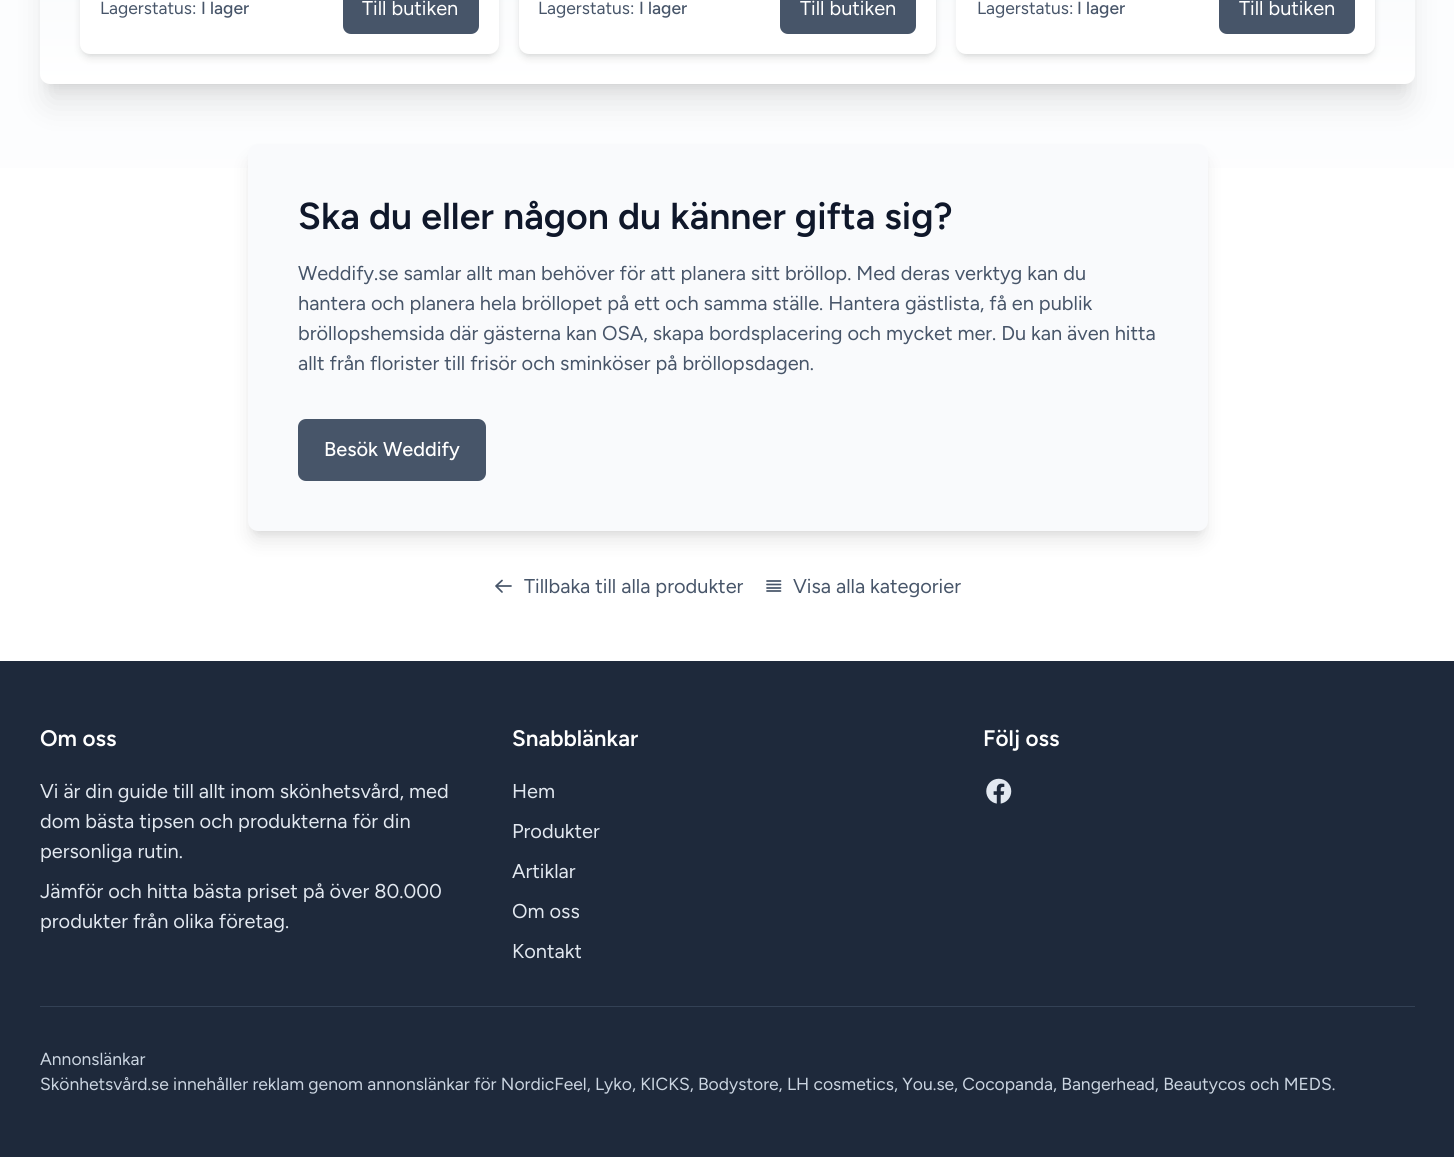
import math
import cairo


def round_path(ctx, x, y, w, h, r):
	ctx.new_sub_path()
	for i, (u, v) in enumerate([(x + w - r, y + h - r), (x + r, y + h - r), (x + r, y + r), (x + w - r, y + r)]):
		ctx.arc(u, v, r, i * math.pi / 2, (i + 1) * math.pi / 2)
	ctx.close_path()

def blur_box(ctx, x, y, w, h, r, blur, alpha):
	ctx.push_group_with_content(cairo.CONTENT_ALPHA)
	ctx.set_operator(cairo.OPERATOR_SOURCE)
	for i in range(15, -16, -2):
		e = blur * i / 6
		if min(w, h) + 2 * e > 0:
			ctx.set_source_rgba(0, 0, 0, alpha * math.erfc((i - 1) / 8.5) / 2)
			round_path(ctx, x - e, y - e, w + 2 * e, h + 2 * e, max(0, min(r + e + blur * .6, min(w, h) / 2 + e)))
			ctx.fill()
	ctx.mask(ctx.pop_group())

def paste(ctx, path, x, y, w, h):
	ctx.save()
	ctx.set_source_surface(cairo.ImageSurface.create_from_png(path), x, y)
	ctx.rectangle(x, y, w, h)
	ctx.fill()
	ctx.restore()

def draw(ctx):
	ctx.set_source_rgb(1, 1, 1)
	ctx.paint()
	gradient = cairo.LinearGradient(727, -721, 728, 661)
	gradient.add_color_stop_rgba(0, 0.973, 0.98, 0.988, 1)
	gradient.add_color_stop_rgba(1, 1, 1, 1, 1)
	ctx.set_source(gradient)
	ctx.rectangle(0, 0, 1454, 168)
	ctx.fill()
	ctx.set_source_rgb(0, 0, 0)
	blur_box(ctx, 48, -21, 1360, 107, 2.5, 6, 0.1)
	blur_box(ctx, 46, -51, 1363, 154, 4, 15.5, 0.1)
	gradient = cairo.LinearGradient(728, -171, 728, 84)
	gradient.add_color_stop_rgba(0, 0.945, 0.961, 0.976, 1)
	gradient.add_color_stop_rgba(1, 1, 1, 1, 1)
	ctx.set_source(gradient)
	ctx.new_path()
	ctx.move_to(40, -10)
	ctx.line_to(1415, -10)
	ctx.line_to(1415, 74)
	ctx.curve_to(1415, 79.5, 1410.5, 84, 1405, 84)
	ctx.line_to(50, 84)
	ctx.curve_to(44.5, 84, 40, 79.5, 40, 74)
	ctx.close_path()
	ctx.fill()
	ctx.set_source_rgb(0, 0, 0)
	blur_box(ctx, 83, -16, 413, 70, 8, 2.5, 0.1)
	blur_box(ctx, 81, -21, 417, 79, 9, 4, 0.1)
	ctx.set_source_rgb(1, 1, 1)
	round_path(ctx, 80, -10, 419, 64, 10)
	ctx.fill()
	ctx.select_font_face('Figtree Light')
	ctx.set_font_size(17.5)
	ctx.set_source_rgb(0.278, 0.333, 0.412)
	ctx.move_to(100, 14)
	ctx.show_text('Lagerstatus:')
	ctx.select_font_face('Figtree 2 Light')
	ctx.move_to(201, 14)
	ctx.show_text('I lager')
	round_path(ctx, 343, -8, 136, 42, 8)
	ctx.fill()
	ctx.select_font_face('Figtree Light')
	ctx.set_font_size(20)
	ctx.set_source_rgb(1, 1, 1)
	ctx.move_to(362, 15)
	ctx.show_text('Till butiken')
	ctx.set_source_rgb(0, 0, 0)
	blur_box(ctx, 521, -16, 413, 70, 8, 2.5, 0.1)
	blur_box(ctx, 520, -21, 415, 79, 9, 4, 0.1)
	ctx.set_source_rgb(1, 1, 1)
	round_path(ctx, 519, -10, 417, 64, 10)
	ctx.fill()
	ctx.set_font_size(17.5)
	ctx.set_source_rgb(0.278, 0.333, 0.412)
	ctx.move_to(538, 14)
	ctx.show_text('Lagerstatus:')
	ctx.select_font_face('Figtree 2 Light')
	ctx.move_to(639, 14)
	ctx.show_text('I lager')
	round_path(ctx, 780, -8, 136, 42, 8)
	ctx.fill()
	ctx.select_font_face('Figtree Light')
	ctx.set_font_size(20)
	ctx.set_source_rgb(1, 1, 1)
	ctx.move_to(800, 15)
	ctx.show_text('Till butiken')
	ctx.set_source_rgb(0, 0, 0)
	blur_box(ctx, 959, -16, 414, 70, 8, 2.5, 0.1)
	blur_box(ctx, 958, -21, 416, 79, 9, 4, 0.1)
	ctx.set_source_rgb(1, 1, 1)
	round_path(ctx, 956, -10, 419, 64, 10)
	ctx.fill()
	ctx.set_font_size(17.5)
	ctx.set_source_rgb(0.278, 0.333, 0.412)
	ctx.move_to(977, 14)
	ctx.show_text('Lagerstatus:')
	ctx.select_font_face('Figtree 2 Light')
	ctx.move_to(1077, 14)
	ctx.show_text('I lager')
	round_path(ctx, 1219, -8, 136, 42, 8)
	ctx.fill()
	ctx.select_font_face('Figtree Light')
	ctx.set_font_size(20)
	ctx.set_source_rgb(1, 1, 1)
	ctx.move_to(1239, 15)
	ctx.show_text('Till butiken')
	ctx.set_source_rgb(0, 0, 0)
	blur_box(ctx, 253, 154, 950, 377, 5, 4, 0.1)
	blur_box(ctx, 251, 160, 953, 380, 6, 9.5, 0.1)
	ctx.set_source_rgb(0.973, 0.98, 0.988)
	round_path(ctx, 248, 144, 960, 387, 10)
	ctx.fill()
	ctx.select_font_face('Figtree SemiBold')
	ctx.set_font_size(37.5)
	ctx.set_source_rgb(0.059, 0.09, 0.165)
	ctx.move_to(298, 229)
	ctx.show_text('Ska du eller någon du känner gifta sig?')
	ctx.select_font_face('Figtree Light')
	ctx.set_font_size(20)
	ctx.set_source_rgb(0.278, 0.333, 0.412)
	for x, y, s in [
		(298, 280, 'Weddify.se samlar allt man behöver för att planera sitt bröllop. Med deras verktyg kan du'),
		(298, 310, 'hantera och planera hela bröllopet på ett och samma ställe. Hantera gästlista, få en publik'),
		(298, 340, 'bröllopshemsida där gästerna kan OSA, skapa bordsplacering och mycket mer. Du kan även hitta'),
		(298, 370, 'allt från florister till frisör och sminköser på bröllopsdagen.'),
	]:
		ctx.move_to(x, y)
		ctx.show_text(s)
	round_path(ctx, 298, 419, 188, 62, 8)
	ctx.fill()
	ctx.select_font_face('Figtree 2 Light')
	ctx.set_source_rgb(1, 1, 1)
	ctx.move_to(324, 456)
	ctx.show_text('Besök Weddify')
	ctx.new_path()
	ctx.move_to(502, 592)
	ctx.line_to(496, 586)
	ctx.move_to(496, 586)
	ctx.line_to(502, 580.5)
	ctx.move_to(496, 586)
	ctx.line_to(511, 586)
	ctx.set_source_rgb(0.278, 0.333, 0.412)
	ctx.set_line_width(1.7)
	ctx.set_line_cap(cairo.LINE_CAP_ROUND)
	ctx.set_line_join(cairo.LINE_JOIN_ROUND)
	ctx.stroke()
	ctx.select_font_face('Figtree Light')
	ctx.move_to(524, 593)
	ctx.show_text('Tillbaka till alla produkter')
	ctx.new_path()
	ctx.move_to(767, 581)
	ctx.line_to(780.5, 581)
	ctx.move_to(767, 584.5)
	ctx.line_to(780.5, 584.5)
	ctx.move_to(767, 588)
	ctx.line_to(780.5, 588)
	ctx.move_to(767, 591)
	ctx.line_to(780.5, 591)
	ctx.stroke()
	ctx.move_to(793, 593)
	ctx.show_text('Visa alla kategorier')
	ctx.set_source_rgb(0.118, 0.161, 0.231)
	ctx.rectangle(0, 661, 1454, 496)
	ctx.fill()
	ctx.select_font_face('Figtree SemiBold')
	ctx.set_font_size(22.5)
	ctx.set_source_rgb(1, 1, 1)
	ctx.move_to(40, 746)
	ctx.show_text('Om oss')
	ctx.select_font_face('Figtree Light')
	ctx.set_font_size(20)
	ctx.set_source_rgb(0.886, 0.91, 0.941)
	for x, y, s in [
		(40, 798, 'Vi är din guide till allt inom skönhetsvård, med'),
		(40, 828, 'dom bästa tipsen och produkterna för din'),
		(40, 858, 'personliga rutin.'),
		(40, 898, 'Jämför och hitta bästa priset på över 80.000'),
		(40, 928, 'produkter från olika företag.'),
	]:
		ctx.move_to(x, y)
		ctx.show_text(s)
	ctx.select_font_face('Figtree SemiBold')
	ctx.set_font_size(22.5)
	ctx.set_source_rgb(1, 1, 1)
	ctx.move_to(512, 746)
	ctx.show_text('Snabblänkar')
	ctx.select_font_face('Figtree Light')
	ctx.set_font_size(20)
	ctx.set_source_rgb(0.886, 0.91, 0.941)
	for x, y, s in [
		(512, 798, 'Hem'),
		(512, 838, 'Produkter'),
		(512, 878, 'Artiklar'),
		(512, 918, 'Om oss'),
		(512, 958, 'Kontakt'),
	]:
		ctx.move_to(x, y)
		ctx.show_text(s)
	ctx.select_font_face('Figtree SemiBold')
	ctx.set_font_size(22.5)
	ctx.set_source_rgb(1, 1, 1)
	ctx.move_to(983, 746)
	ctx.show_text('Följ oss')
	paste(ctx, 'media/1.png', 986, 778, 26, 26)
	ctx.set_source_rgb(0.2, 0.255, 0.333)
	ctx.rectangle(40, 1006, 1375, 1)
	ctx.fill()
	ctx.select_font_face('Figtree Light')
	ctx.set_font_size(17.5)
	ctx.set_source_rgb(0.796, 0.835, 0.882)
	ctx.move_to(40, 1065)
	ctx.show_text('Annonslänkar')
	ctx.move_to(40, 1090)
	ctx.show_text('Skönhetsvård.se innehåller reklam genom annonslänkar för NordicFeel, Lyko, KICKS, Bodystore, LH cosmetics, You.se, Cocopanda, Bangerhead, Beautycos och MEDS.')


surface = cairo.ImageSurface(cairo.FORMAT_RGB24, 1454, 1157)
ctx = cairo.Context(surface)
options = cairo.FontOptions()
options.set_hint_metrics(cairo.HINT_METRICS_OFF)
options.set_hint_style(cairo.HINT_STYLE_NONE)
ctx.set_font_options(options)
ctx.set_miter_limit(4)
draw(ctx)
surface.write_to_png('image.png')
